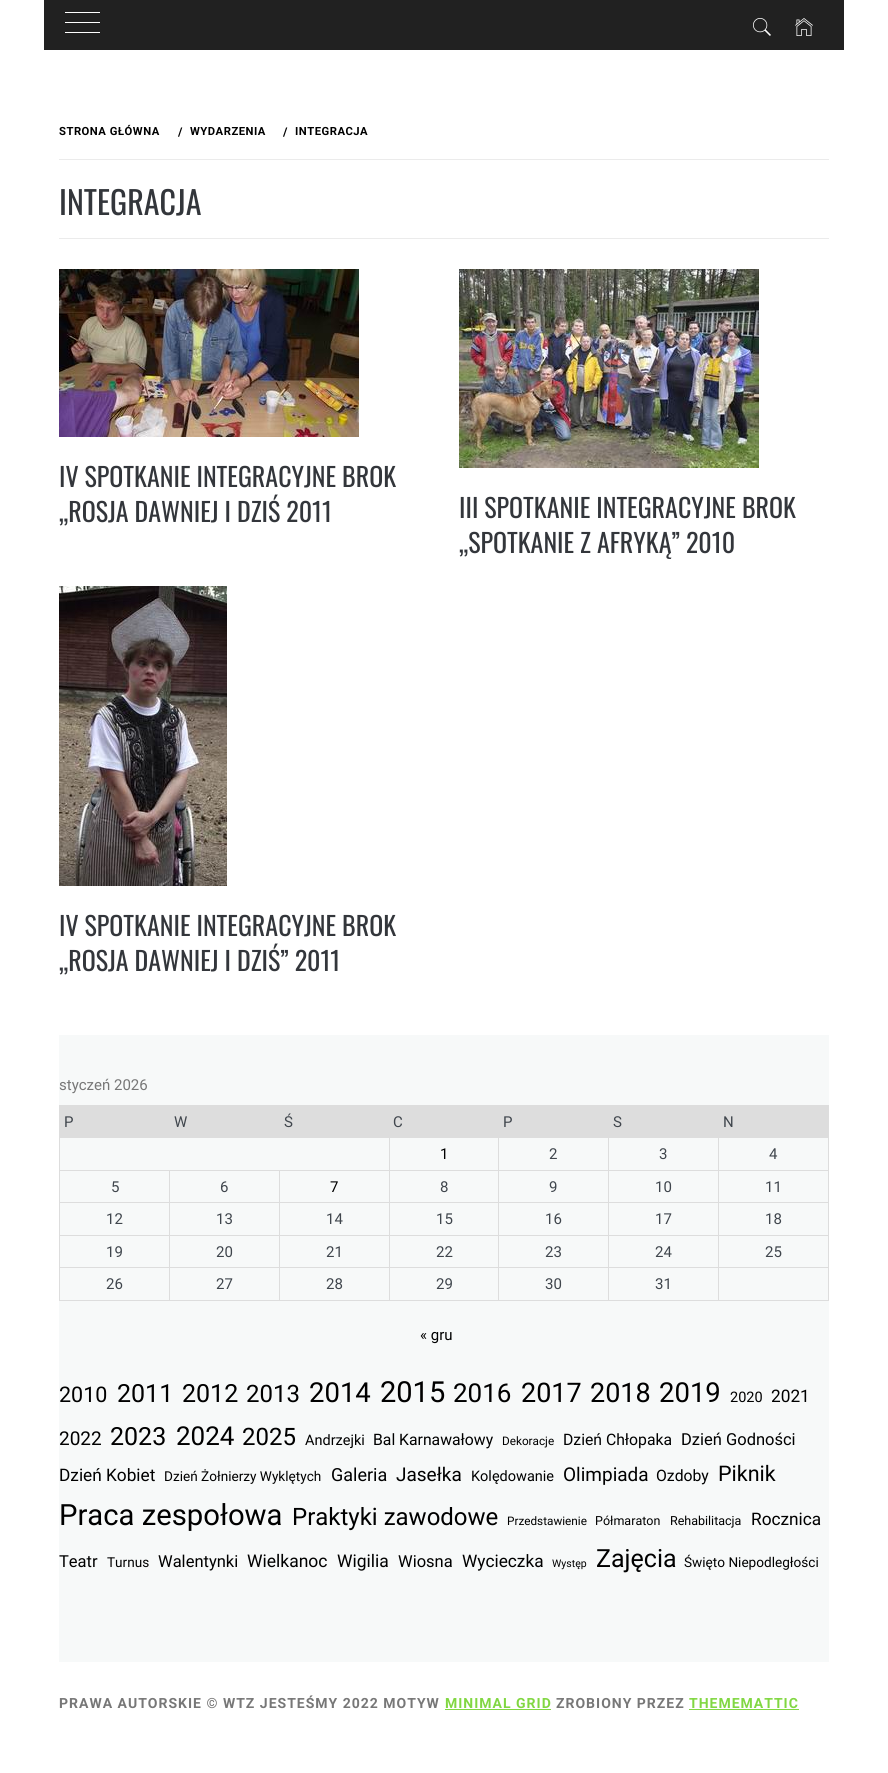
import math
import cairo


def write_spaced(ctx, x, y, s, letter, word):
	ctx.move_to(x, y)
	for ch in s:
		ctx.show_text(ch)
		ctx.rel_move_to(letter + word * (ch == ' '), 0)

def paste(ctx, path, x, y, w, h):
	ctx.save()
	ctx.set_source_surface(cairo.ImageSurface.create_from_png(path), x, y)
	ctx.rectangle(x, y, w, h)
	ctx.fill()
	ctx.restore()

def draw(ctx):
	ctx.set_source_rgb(1, 1, 1)
	ctx.paint()
	ctx.set_source_rgb(0.129, 0.129, 0.129)
	ctx.rectangle(44, 0, 800, 50)
	ctx.fill()
	ctx.set_source_rgb(1, 1, 1)
	ctx.rectangle(65, 12, 35, 1)
	ctx.rectangle(65, 22, 35, 1)
	ctx.rectangle(65, 32, 35, 1)
	ctx.fill()
	paste(ctx, 'media/1.png', 753, 18, 18, 18)
	paste(ctx, 'media/2.png', 795, 18, 18, 18)
	ctx.set_source_rgb(0.918, 0.918, 0.918)
	ctx.rectangle(59, 238, 770, 1)
	ctx.fill()
	ctx.rectangle(59, 159, 770, 1)
	ctx.fill()
	ctx.select_font_face('Roboto', cairo.FONT_SLANT_NORMAL, cairo.FONT_WEIGHT_BOLD)
	ctx.set_font_size(11.25)
	ctx.set_source_rgb(0, 0, 0)
	write_spaced(ctx, 59, 135, 'STRONA GŁÓWNA', 0.5, 0)
	ctx.set_font_size(12)
	write_spaced(ctx, 178, 136, '/', 0.5, 0)
	ctx.set_font_size(11.25)
	write_spaced(ctx, 190, 135, 'WYDARZENIA', 0.5, 0)
	ctx.set_font_size(12)
	write_spaced(ctx, 283, 136, '/', 0.5, 0)
	ctx.set_font_size(11.25)
	write_spaced(ctx, 295, 135, 'INTEGRACJA', 0.5, 0)
	ctx.select_font_face('Oswald')
	ctx.set_font_size(32)
	ctx.set_source_rgb(0.2, 0.212, 0.231)
	ctx.move_to(59, 215)
	ctx.show_text('INTEGRACJA')
	paste(ctx, 'media/3.png', 59, 269, 300, 168)
	ctx.set_font_size(26)
	ctx.move_to(59, 487)
	ctx.show_text('IV SPOTKANIE INTEGRACYJNE BROK')
	ctx.move_to(59, 522)
	ctx.show_text('„ROSJA DAWNIEJ I DZIŚ 2011')
	paste(ctx, 'media/4.png', 459, 269, 300, 199)
	ctx.move_to(459, 518)
	ctx.show_text('III SPOTKANIE INTEGRACYJNE BROK')
	ctx.move_to(459, 553)
	ctx.show_text('„SPOTKANIE Z AFRYKĄ” 2010')
	paste(ctx, 'media/5.png', 59, 586, 168, 300)
	ctx.move_to(59, 936)
	ctx.show_text('IV SPOTKANIE INTEGRACYJNE BROK')
	ctx.move_to(59, 971)
	ctx.show_text('„ROSJA DAWNIEJ I DZIŚ” 2011')
	ctx.set_source_rgb(0.965, 0.973, 0.976)
	ctx.rectangle(59, 1035, 770, 627)
	ctx.fill()
	ctx.select_font_face('Roboto')
	ctx.set_font_size(15)
	ctx.set_source_rgb(0.467, 0.467, 0.467)
	ctx.move_to(59, 1090)
	ctx.show_text('styczeń 2026')
	ctx.set_source_rgb(0.867, 0.867, 0.867)
	ctx.rectangle(60, 1106, 110, 31)
	ctx.rectangle(59, 1105, 111, 1)
	ctx.rectangle(389, 1105, 329, 33)
	ctx.rectangle(718, 1170, 111, 1)
	ctx.rectangle(718, 1202, 111, 1)
	ctx.rectangle(718, 1235, 111, 1)
	ctx.rectangle(718, 1267, 111, 1)
	ctx.rectangle(828, 1267, 1, 34)
	ctx.rectangle(718, 1300, 111, 1)
	ctx.rectangle(718, 1267, 1, 34)
	ctx.rectangle(608, 1267, 111, 1)
	ctx.rectangle(718, 1235, 1, 33)
	ctx.rectangle(608, 1235, 111, 1)
	ctx.rectangle(718, 1202, 1, 34)
	ctx.rectangle(608, 1202, 111, 1)
	ctx.rectangle(718, 1170, 1, 33)
	ctx.rectangle(608, 1170, 111, 1)
	ctx.rectangle(608, 1300, 111, 1)
	ctx.rectangle(608, 1267, 1, 34)
	ctx.rectangle(498, 1267, 111, 1)
	ctx.rectangle(608, 1235, 1, 33)
	ctx.rectangle(498, 1235, 111, 1)
	ctx.rectangle(608, 1202, 1, 34)
	ctx.rectangle(498, 1202, 111, 1)
	ctx.rectangle(608, 1170, 1, 33)
	ctx.rectangle(498, 1170, 111, 1)
	ctx.rectangle(498, 1300, 111, 1)
	ctx.rectangle(498, 1267, 1, 34)
	ctx.rectangle(389, 1267, 110, 1)
	ctx.rectangle(498, 1235, 1, 33)
	ctx.rectangle(389, 1235, 110, 1)
	ctx.rectangle(498, 1202, 1, 34)
	ctx.rectangle(389, 1202, 110, 1)
	ctx.rectangle(498, 1170, 1, 33)
	ctx.rectangle(389, 1170, 110, 1)
	ctx.rectangle(389, 1300, 110, 1)
	ctx.rectangle(389, 1267, 1, 34)
	ctx.rectangle(279, 1267, 111, 1)
	ctx.rectangle(389, 1235, 1, 33)
	ctx.rectangle(279, 1235, 111, 1)
	ctx.rectangle(389, 1202, 1, 34)
	ctx.rectangle(279, 1202, 111, 1)
	ctx.rectangle(389, 1170, 1, 33)
	ctx.rectangle(279, 1170, 111, 1)
	ctx.rectangle(389, 1137, 1, 34)
	ctx.rectangle(59, 1137, 331, 1)
	ctx.rectangle(279, 1300, 111, 1)
	ctx.rectangle(279, 1267, 1, 34)
	ctx.rectangle(169, 1267, 111, 1)
	ctx.rectangle(279, 1235, 1, 33)
	ctx.rectangle(169, 1235, 111, 1)
	ctx.rectangle(279, 1202, 1, 34)
	ctx.rectangle(169, 1202, 111, 1)
	ctx.rectangle(279, 1170, 1, 33)
	ctx.rectangle(169, 1170, 111, 1)
	ctx.rectangle(169, 1300, 111, 1)
	ctx.rectangle(169, 1267, 1, 34)
	ctx.rectangle(59, 1267, 111, 1)
	ctx.rectangle(169, 1235, 1, 33)
	ctx.rectangle(59, 1235, 111, 1)
	ctx.rectangle(169, 1202, 1, 34)
	ctx.rectangle(59, 1202, 111, 1)
	ctx.rectangle(169, 1170, 1, 33)
	ctx.rectangle(59, 1170, 111, 1)
	ctx.rectangle(59, 1300, 111, 1)
	ctx.rectangle(59, 1267, 1, 34)
	ctx.rectangle(59, 1235, 1, 33)
	ctx.rectangle(59, 1202, 1, 34)
	ctx.rectangle(59, 1170, 1, 33)
	ctx.rectangle(59, 1137, 1, 34)
	ctx.rectangle(59, 1105, 1, 33)
	ctx.fill()
	ctx.set_source_rgb(0.251, 0.275, 0.302)
	ctx.move_to(64, 1127)
	ctx.show_text('P')
	ctx.set_source_rgb(0.867, 0.867, 0.867)
	ctx.rectangle(170, 1105, 219, 32)
	ctx.fill()
	ctx.set_source_rgb(0.251, 0.275, 0.302)
	for x, y, s in [
		(174, 1127, 'W'),
		(284, 1127, 'Ś'),
		(393, 1127, 'C'),
		(503, 1127, 'P'),
		(613, 1127, 'S'),
	]:
		ctx.move_to(x, y)
		ctx.show_text(s)
	ctx.set_source_rgb(0.867, 0.867, 0.867)
	ctx.rectangle(718, 1106, 110, 31)
	ctx.rectangle(718, 1105, 111, 1)
	ctx.rectangle(718, 1137, 111, 1)
	ctx.rectangle(828, 1235, 1, 33)
	ctx.rectangle(828, 1202, 1, 34)
	ctx.rectangle(828, 1170, 1, 33)
	ctx.rectangle(828, 1137, 1, 34)
	ctx.rectangle(828, 1105, 1, 33)
	ctx.fill()
	ctx.set_source_rgb(0.251, 0.275, 0.302)
	ctx.move_to(723, 1127)
	ctx.show_text('N')
	ctx.set_source_rgb(0, 0, 0)
	ctx.move_to(440, 1159)
	ctx.show_text('1')
	ctx.set_source_rgb(0.867, 0.867, 0.867)
	ctx.rectangle(498, 1137, 1, 34)
	ctx.fill()
	ctx.set_source_rgb(0.251, 0.275, 0.302)
	ctx.move_to(549, 1159)
	ctx.show_text('2')
	ctx.set_source_rgb(0.867, 0.867, 0.867)
	ctx.rectangle(608, 1137, 1, 34)
	ctx.fill()
	ctx.set_source_rgb(0.251, 0.275, 0.302)
	ctx.move_to(659, 1159)
	ctx.show_text('3')
	ctx.set_source_rgb(0.867, 0.867, 0.867)
	ctx.rectangle(718, 1137, 1, 34)
	ctx.fill()
	ctx.set_source_rgb(0.251, 0.275, 0.302)
	for x, y, s in [
		(769, 1159, '4'),
		(111, 1192, '5'),
		(220, 1192, '6'),
	]:
		ctx.move_to(x, y)
		ctx.show_text(s)
	ctx.set_source_rgb(0, 0, 0)
	ctx.move_to(330, 1192)
	ctx.show_text('7')
	ctx.set_source_rgb(0.251, 0.275, 0.302)
	for x, y, s in [
		(440, 1192, '8'),
		(549, 1192, '9'),
		(655, 1192, '10'),
		(765, 1192, '11'),
		(106, 1224, '12'),
		(216, 1224, '13'),
		(326, 1224, '14'),
		(436, 1224, '15'),
		(545, 1224, '16'),
		(655, 1224, '17'),
		(765, 1224, '18'),
		(106, 1257, '19'),
		(216, 1257, '20'),
		(326, 1257, '21'),
		(436, 1257, '22'),
		(545, 1257, '23'),
		(655, 1257, '24'),
		(765, 1257, '25'),
		(106, 1289, '26'),
		(216, 1289, '27'),
		(326, 1289, '28'),
		(436, 1289, '29'),
		(545, 1289, '30'),
		(655, 1289, '31'),
	]:
		ctx.move_to(x, y)
		ctx.show_text(s)
	ctx.set_source_rgb(0, 0, 0)
	ctx.move_to(420, 1340)
	ctx.show_text('« gru')
	ctx.set_font_size(21.5)
	ctx.move_to(59, 1402)
	ctx.show_text('2010')
	ctx.set_font_size(25)
	ctx.move_to(117, 1402)
	ctx.show_text('2011')
	ctx.move_to(182, 1402)
	ctx.show_text('2012')
	ctx.set_font_size(24)
	ctx.move_to(246, 1402)
	ctx.show_text('2013')
	ctx.set_font_size(27.5)
	ctx.move_to(309, 1402)
	ctx.show_text('2014')
	ctx.set_font_size(29)
	ctx.move_to(380, 1402)
	ctx.show_text('2015')
	ctx.set_font_size(26)
	ctx.move_to(453, 1402)
	ctx.show_text('2016')
	ctx.set_font_size(27)
	ctx.move_to(521, 1402)
	ctx.show_text('2017')
	ctx.move_to(590, 1402)
	ctx.show_text('2018')
	ctx.set_font_size(27.5)
	ctx.move_to(659, 1402)
	ctx.show_text('2019')
	ctx.set_font_size(14.5)
	ctx.move_to(730, 1402)
	ctx.show_text('2020')
	ctx.set_font_size(17.25)
	ctx.move_to(771, 1402)
	ctx.show_text('2021')
	ctx.set_font_size(19)
	ctx.move_to(59, 1445)
	ctx.show_text('2022')
	ctx.set_font_size(25)
	ctx.move_to(110, 1445)
	ctx.show_text('2023')
	ctx.set_font_size(26)
	ctx.move_to(176, 1445)
	ctx.show_text('2024')
	ctx.set_font_size(24)
	ctx.move_to(242, 1445)
	ctx.show_text('2025')
	ctx.set_font_size(14.5)
	ctx.move_to(305, 1445)
	ctx.show_text('Andrzejki')
	ctx.set_font_size(15.75)
	ctx.move_to(373, 1445)
	ctx.show_text('Bal Karnawałowy')
	ctx.set_font_size(11.75)
	ctx.move_to(502, 1445)
	ctx.show_text('Dekoracje')
	ctx.set_font_size(15.75)
	ctx.move_to(563, 1445)
	ctx.show_text('Dzień Chłopaka')
	ctx.set_font_size(16.5)
	ctx.move_to(681, 1445)
	ctx.show_text('Dzień Godności')
	ctx.set_font_size(17.25)
	ctx.move_to(59, 1481)
	ctx.show_text('Dzień Kobiet')
	ctx.set_font_size(13.6)
	ctx.move_to(164, 1481)
	ctx.show_text('Dzień Żołnierzy Wyklętych')
	ctx.set_font_size(18)
	ctx.move_to(331, 1481)
	ctx.show_text('Galeria')
	ctx.set_font_size(19)
	ctx.move_to(396, 1481)
	ctx.show_text('Jasełka')
	ctx.set_font_size(14.5)
	ctx.move_to(471, 1481)
	ctx.show_text('Kolędowanie')
	ctx.set_font_size(19)
	ctx.move_to(563, 1481)
	ctx.show_text('Olimpiada')
	ctx.set_font_size(15.75)
	ctx.move_to(656, 1481)
	ctx.show_text('Ozdoby')
	ctx.set_font_size(21.5)
	ctx.move_to(718, 1481)
	ctx.show_text('Piknik')
	ctx.set_font_size(29.25)
	ctx.move_to(59, 1525)
	ctx.show_text('Praca zespołowa')
	ctx.set_font_size(24)
	ctx.move_to(292, 1525)
	ctx.show_text('Praktyki zawodowe')
	ctx.set_font_size(11.75)
	ctx.move_to(507, 1525)
	ctx.show_text('Przedstawienie')
	ctx.set_font_size(12.5)
	ctx.move_to(595, 1525)
	ctx.show_text('Półmaraton')
	ctx.move_to(670, 1525)
	ctx.show_text('Rehabilitacja')
	ctx.set_font_size(17.25)
	ctx.move_to(751, 1525)
	ctx.show_text('Rocznica')
	ctx.set_font_size(16.5)
	ctx.move_to(59, 1567)
	ctx.show_text('Teatr')
	ctx.set_font_size(13.6)
	ctx.move_to(107, 1567)
	ctx.show_text('Turnus')
	ctx.set_font_size(16.5)
	ctx.move_to(158, 1567)
	ctx.show_text('Walentynki')
	ctx.set_font_size(17.5)
	ctx.move_to(247, 1567)
	ctx.show_text('Wielkanoc')
	ctx.move_to(337, 1567)
	ctx.show_text('Wigilia')
	ctx.set_font_size(16.5)
	ctx.move_to(398, 1567)
	ctx.show_text('Wiosna')
	ctx.set_font_size(17.25)
	ctx.move_to(462, 1567)
	ctx.show_text('Wycieczka')
	ctx.set_font_size(10.5)
	ctx.move_to(552, 1567)
	ctx.show_text('Występ')
	ctx.set_font_size(25)
	ctx.move_to(596, 1567)
	ctx.show_text('Zajęcia')
	ctx.set_font_size(13.6)
	ctx.move_to(684, 1567)
	ctx.show_text('Święto Niepodległości')
	ctx.select_font_face('Roboto', cairo.FONT_SLANT_NORMAL, cairo.FONT_WEIGHT_BOLD)
	ctx.set_font_size(14)
	ctx.set_source_rgb(0.467, 0.467, 0.467)
	write_spaced(ctx, 59, 1708, 'PRAWA AUTORSKIE © WTZ JESTEŚMY 2022 MOTYW', 1, 0)
	ctx.set_source_rgb(0.506, 0.843, 0.259)
	write_spaced(ctx, 445, 1708, 'MINIMAL GRID', 1, 0)
	ctx.rectangle(445, 1709, 106, 1)
	ctx.fill()
	ctx.set_source_rgb(0.467, 0.467, 0.467)
	write_spaced(ctx, 556, 1708, 'ZROBIONY PRZEZ', 1, 0)
	ctx.set_source_rgb(0.506, 0.843, 0.259)
	write_spaced(ctx, 689, 1708, 'THEMEMATTIC', 1, 0)
	ctx.rectangle(689, 1709, 110, 1)
	ctx.fill()


surface = cairo.ImageSurface(cairo.FORMAT_RGB24, 888, 1773)
ctx = cairo.Context(surface)
options = cairo.FontOptions()
options.set_hint_metrics(cairo.HINT_METRICS_OFF)
options.set_hint_style(cairo.HINT_STYLE_NONE)
ctx.set_font_options(options)
ctx.set_miter_limit(4)
draw(ctx)
surface.write_to_png('image.png')
